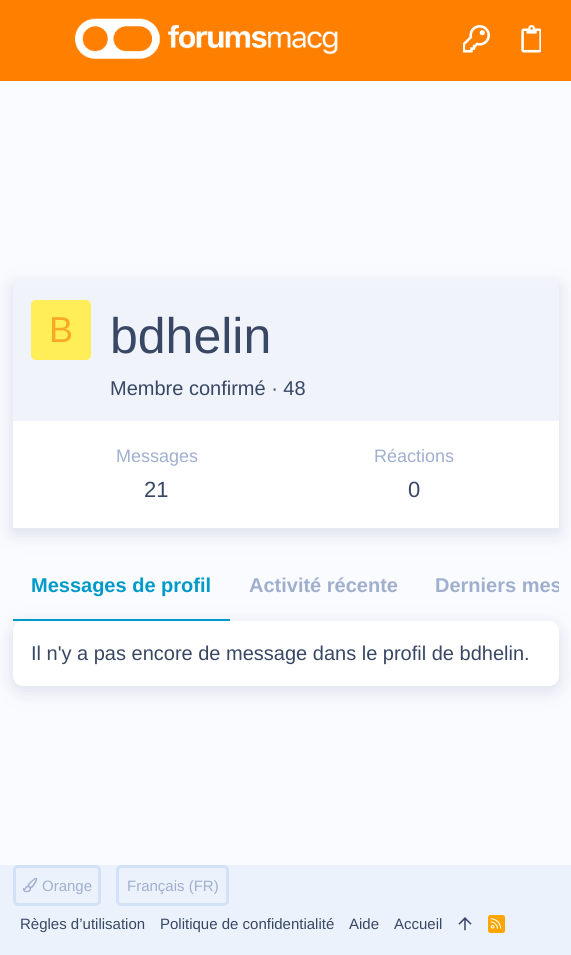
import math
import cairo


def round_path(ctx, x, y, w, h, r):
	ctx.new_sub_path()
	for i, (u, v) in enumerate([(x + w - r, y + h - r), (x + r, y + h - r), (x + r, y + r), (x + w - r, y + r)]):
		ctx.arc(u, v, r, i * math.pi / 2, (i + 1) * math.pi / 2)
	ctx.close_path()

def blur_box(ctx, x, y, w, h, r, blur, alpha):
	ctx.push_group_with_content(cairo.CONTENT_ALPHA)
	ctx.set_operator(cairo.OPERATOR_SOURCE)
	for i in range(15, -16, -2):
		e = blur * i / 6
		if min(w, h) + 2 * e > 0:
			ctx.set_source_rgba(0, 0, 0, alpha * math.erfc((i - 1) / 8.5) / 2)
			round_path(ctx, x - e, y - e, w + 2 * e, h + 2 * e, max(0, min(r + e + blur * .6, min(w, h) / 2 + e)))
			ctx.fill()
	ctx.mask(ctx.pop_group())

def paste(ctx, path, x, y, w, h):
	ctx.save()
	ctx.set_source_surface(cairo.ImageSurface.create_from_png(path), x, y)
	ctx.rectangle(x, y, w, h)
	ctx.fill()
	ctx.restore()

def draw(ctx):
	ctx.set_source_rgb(0.98, 0.984, 1)
	ctx.paint()
	ctx.set_source_rgb(1, 0.498, 0)
	ctx.rectangle(0, 0, 571, 81)
	ctx.fill()
	paste(ctx, 'media/1.png', 75, 18, 263, 41)
	paste(ctx, 'media/2.png', 463, 25, 27, 28)
	paste(ctx, 'media/3.png', 521, 25, 20, 28)
	ctx.set_source_rgb(0.349, 0.4, 0.6)
	blur_box(ctx, 13, 286, 546, 247, 0, 9.5, 0.2)
	ctx.set_source_rgb(1, 1, 1)
	ctx.rectangle(13, 421, 546, 107)
	ctx.fill()
	ctx.set_source_rgb(0.945, 0.953, 0.984)
	ctx.rectangle(13, 281, 546, 140)
	ctx.fill()
	ctx.set_source_rgb(1, 0.933, 0.345)
	round_path(ctx, 31, 300, 60, 60, 5)
	ctx.fill()
	ctx.select_font_face('Liberation Sans')
	ctx.set_font_size(36)
	ctx.set_source_rgb(0.976, 0.659, 0.145)
	ctx.move_to(49, 342)
	ctx.show_text('B')
	ctx.set_font_size(50)
	ctx.set_source_rgb(0.22, 0.278, 0.392)
	ctx.move_to(110, 353)
	ctx.show_text('bdhelin')
	ctx.set_font_size(20)
	ctx.move_to(110, 395)
	ctx.show_text('Membre confirmé · 48')
	ctx.set_font_size(18)
	ctx.set_source_rgb(0.627, 0.686, 0.808)
	ctx.move_to(116, 462)
	ctx.show_text('Messages')
	ctx.set_font_size(22)
	ctx.set_source_rgb(0.22, 0.278, 0.392)
	ctx.move_to(144, 497)
	ctx.show_text('21')
	ctx.set_font_size(18)
	ctx.set_source_rgb(0.627, 0.686, 0.808)
	ctx.move_to(374, 462)
	ctx.show_text('Réactions')
	ctx.set_font_size(22)
	ctx.set_source_rgb(0.22, 0.278, 0.392)
	ctx.move_to(408, 497)
	ctx.show_text('0')
	ctx.set_source_rgb(0.349, 0.4, 0.6)
	blur_box(ctx, 13, 626, 546, 65, 10, 9.5, 0.2)
	ctx.set_source_rgb(0, 0.604, 0.788)
	ctx.rectangle(13, 619, 217, 2)
	ctx.fill()
	ctx.select_font_face('Liberation Sans', cairo.FONT_SLANT_NORMAL, cairo.FONT_WEIGHT_BOLD)
	ctx.set_font_size(20)
	ctx.move_to(31, 592)
	ctx.show_text('Messages de profil')
	ctx.set_source_rgb(0.627, 0.686, 0.808)
	ctx.move_to(249, 592)
	ctx.show_text('Activité récente')
	ctx.save()
	ctx.rectangle(13, 553, 546, 68)
	ctx.clip()
	ctx.move_to(435, 592)
	ctx.show_text('Derniers mes')
	ctx.restore()
	ctx.set_source_rgb(1, 1, 1)
	round_path(ctx, 13, 621, 546, 65, 10)
	ctx.fill()
	ctx.select_font_face('Liberation Sans')
	ctx.set_source_rgb(0.22, 0.278, 0.392)
	ctx.move_to(31, 660)
	ctx.show_text('Il n\'y a pas encore de message dans le profil de bdhelin.')
	ctx.set_source_rgb(0.925, 0.949, 0.984)
	ctx.rectangle(0, 865, 571, 90)
	ctx.fill()
	round_path(ctx, 14.5, 866.5, 85, 38, 3.5)
	ctx.set_source_rgb(0.827, 0.882, 0.965)
	ctx.set_line_width(3)
	ctx.stroke()
	paste(ctx, 'media/4.png', 22, 877, 16, 16)
	ctx.set_font_size(15)
	ctx.set_source_rgb(0.627, 0.686, 0.808)
	ctx.move_to(42, 891)
	ctx.show_text('Orange')
	round_path(ctx, 117.5, 866.5, 110, 38, 3.5)
	ctx.set_source_rgb(0.827, 0.882, 0.965)
	ctx.stroke()
	ctx.set_source_rgb(0.627, 0.686, 0.808)
	ctx.move_to(127, 891)
	ctx.show_text('Français (FR)')
	ctx.set_source_rgb(0.22, 0.278, 0.392)
	for x, y, s in [
		(20, 929, 'Règles d’utilisation'),
		(160, 929, 'Politique de confidentialité'),
		(349, 929, 'Aide'),
		(394, 929, 'Accueil'),
	]:
		ctx.move_to(x, y)
		ctx.show_text(s)
	paste(ctx, 'media/5.png', 458, 917, 14, 14)
	ctx.set_source_rgb(1, 0.647, 0)
	round_path(ctx, 488, 915, 17, 18, 2.5)
	ctx.fill()
	paste(ctx, 'media/6.png', 490, 918, 12, 11)


surface = cairo.ImageSurface(cairo.FORMAT_RGB24, 571, 955)
ctx = cairo.Context(surface)
options = cairo.FontOptions()
options.set_hint_metrics(cairo.HINT_METRICS_OFF)
options.set_hint_style(cairo.HINT_STYLE_NONE)
ctx.set_font_options(options)
ctx.set_miter_limit(4)
draw(ctx)
surface.write_to_png('image.png')
